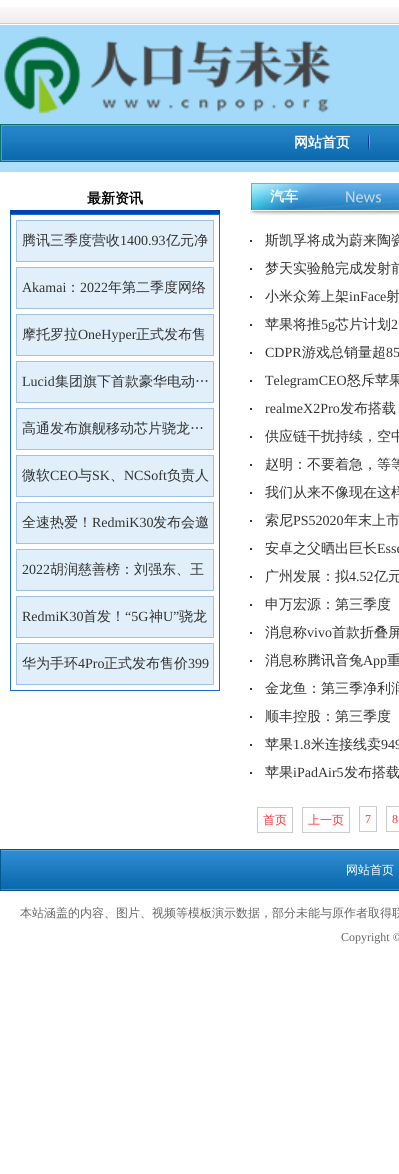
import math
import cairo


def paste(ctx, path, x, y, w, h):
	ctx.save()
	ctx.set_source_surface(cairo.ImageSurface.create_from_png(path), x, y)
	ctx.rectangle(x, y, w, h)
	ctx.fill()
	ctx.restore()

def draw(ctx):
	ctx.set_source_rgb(1, 1, 1)
	ctx.paint()
	paste(ctx, 'media/1.png', 0, 25, 399, 147)
	paste(ctx, 'media/2.png', 0, 7, 399, 16)
	ctx.set_source_rgb(0.8, 0.8, 0.8)
	ctx.rectangle(0, 23, 399, 1)
	ctx.fill()
	paste(ctx, 'media/3.png', 4, 36, 327, 78)
	paste(ctx, 'media/4.png', 2, 126, 397, 34)
	ctx.rectangle(0.5, 124.5, 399, 37)
	ctx.set_source_rgb(0.051, 0.447, 0.431)
	ctx.set_line_width(1)
	ctx.stroke()
	ctx.rectangle(1.5, 125.5, 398, 35)
	ctx.set_source_rgb(0.325, 0.616, 0.812)
	ctx.stroke()
	ctx.select_font_face('WenQuanYi Zen Hei', cairo.FONT_SLANT_NORMAL, cairo.FONT_WEIGHT_BOLD)
	ctx.set_font_size(14)
	ctx.set_source_rgb(1, 1, 1)
	ctx.move_to(294, 147)
	ctx.show_text('网站首页')
	paste(ctx, 'media/5.png', 368, 135, 2, 15)
	ctx.set_source_rgb(0, 0.267, 0.671)
	ctx.rectangle(10, 210, 210, 4)
	ctx.fill()
	ctx.set_source_rgb(0, 0, 0)
	ctx.move_to(87, 203)
	ctx.show_text('最新资讯')
	ctx.rectangle(10.5, 214.5, 209, 476)
	ctx.set_source_rgb(0.078, 0.424, 0.808)
	ctx.stroke()
	ctx.set_source_rgb(0.878, 0.937, 0.98)
	ctx.rectangle(16.5, 220.5, 197, 41)
	ctx.fill_preserve()
	ctx.set_source_rgb(0.624, 0.761, 0.918)
	ctx.stroke()
	ctx.select_font_face('WenQuanYi Zen Hei Medium')
	ctx.set_source_rgb(0.2, 0.2, 0.2)
	ctx.move_to(22, 245)
	ctx.show_text('腾讯三季度营收')
	ctx.select_font_face('Liberation Serif')
	ctx.move_to(120, 245)
	ctx.show_text('1400.93')
	ctx.select_font_face('WenQuanYi Zen Hei Medium')
	ctx.move_to(166, 245)
	ctx.show_text('亿元净')
	ctx.set_source_rgb(0.878, 0.937, 0.98)
	ctx.rectangle(16.5, 267.5, 197, 41)
	ctx.fill_preserve()
	ctx.set_source_rgb(0.624, 0.761, 0.918)
	ctx.stroke()
	ctx.select_font_face('Liberation Serif')
	ctx.set_source_rgb(0.2, 0.2, 0.2)
	ctx.move_to(22, 292)
	ctx.show_text('Akamai')
	ctx.select_font_face('WenQuanYi Zen Hei Medium')
	ctx.move_to(66, 292)
	ctx.show_text('：')
	ctx.select_font_face('Liberation Serif')
	ctx.move_to(80, 292)
	ctx.show_text('2022')
	ctx.select_font_face('WenQuanYi Zen Hei Medium')
	ctx.move_to(108, 292)
	ctx.show_text('年第二季度网络')
	ctx.set_source_rgb(0.878, 0.937, 0.98)
	ctx.rectangle(16.5, 314.5, 197, 41)
	ctx.fill_preserve()
	ctx.set_source_rgb(0.624, 0.761, 0.918)
	ctx.stroke()
	ctx.set_source_rgb(0.2, 0.2, 0.2)
	ctx.move_to(22, 339)
	ctx.show_text('摩托罗拉')
	ctx.select_font_face('Liberation Serif')
	ctx.move_to(78, 339)
	ctx.show_text('OneHyper')
	ctx.select_font_face('WenQuanYi Zen Hei Medium')
	ctx.move_to(136, 339)
	ctx.show_text('正式发布售')
	ctx.set_source_rgb(0.878, 0.937, 0.98)
	ctx.rectangle(16.5, 361.5, 197, 41)
	ctx.fill_preserve()
	ctx.set_source_rgb(0.624, 0.761, 0.918)
	ctx.stroke()
	ctx.select_font_face('Liberation Serif')
	ctx.set_source_rgb(0.2, 0.2, 0.2)
	ctx.move_to(22, 386)
	ctx.show_text('Lucid')
	ctx.select_font_face('WenQuanYi Zen Hei Medium')
	ctx.move_to(55, 386)
	ctx.show_text('集团旗下首款豪华电动…')
	ctx.set_source_rgb(0.878, 0.937, 0.98)
	ctx.rectangle(16.5, 408.5, 197, 41)
	ctx.fill_preserve()
	ctx.set_source_rgb(0.624, 0.761, 0.918)
	ctx.stroke()
	ctx.set_source_rgb(0.2, 0.2, 0.2)
	ctx.move_to(22, 433)
	ctx.show_text('高通发布旗舰移动芯片骁龙…')
	ctx.set_source_rgb(0.878, 0.937, 0.98)
	ctx.rectangle(16.5, 455.5, 197, 41)
	ctx.fill_preserve()
	ctx.set_source_rgb(0.624, 0.761, 0.918)
	ctx.stroke()
	ctx.set_source_rgb(0.2, 0.2, 0.2)
	ctx.move_to(22, 480)
	ctx.show_text('微软')
	ctx.select_font_face('Liberation Serif')
	ctx.move_to(50, 480)
	ctx.show_text('CEO')
	ctx.select_font_face('WenQuanYi Zen Hei Medium')
	ctx.move_to(78, 480)
	ctx.show_text('与')
	ctx.select_font_face('Liberation Serif')
	ctx.move_to(92, 480)
	ctx.show_text('SK')
	ctx.select_font_face('WenQuanYi Zen Hei Medium')
	ctx.move_to(110, 480)
	ctx.show_text('、')
	ctx.select_font_face('Liberation Serif')
	ctx.move_to(124, 480)
	ctx.show_text('NCSoft')
	ctx.select_font_face('WenQuanYi Zen Hei Medium')
	ctx.move_to(167, 480)
	ctx.show_text('负责人')
	ctx.set_source_rgb(0.878, 0.937, 0.98)
	ctx.rectangle(16.5, 502.5, 197, 41)
	ctx.fill_preserve()
	ctx.set_source_rgb(0.624, 0.761, 0.918)
	ctx.stroke()
	ctx.set_source_rgb(0.2, 0.2, 0.2)
	ctx.move_to(22, 527)
	ctx.show_text('全速热爱！')
	ctx.select_font_face('Liberation Serif')
	ctx.move_to(92, 527)
	ctx.show_text('RedmiK30')
	ctx.select_font_face('WenQuanYi Zen Hei Medium')
	ctx.move_to(153, 527)
	ctx.show_text('发布会邀')
	ctx.set_source_rgb(0.878, 0.937, 0.98)
	ctx.rectangle(16.5, 549.5, 197, 41)
	ctx.fill_preserve()
	ctx.set_source_rgb(0.624, 0.761, 0.918)
	ctx.stroke()
	ctx.select_font_face('Liberation Serif')
	ctx.set_source_rgb(0.2, 0.2, 0.2)
	ctx.move_to(22, 574)
	ctx.show_text('2022')
	ctx.select_font_face('WenQuanYi Zen Hei Medium')
	ctx.move_to(50, 574)
	ctx.show_text('胡润慈善榜：刘强东、王')
	ctx.set_source_rgb(0.878, 0.937, 0.98)
	ctx.rectangle(16.5, 596.5, 197, 41)
	ctx.fill_preserve()
	ctx.set_source_rgb(0.624, 0.761, 0.918)
	ctx.stroke()
	ctx.select_font_face('Liberation Serif')
	ctx.set_source_rgb(0.2, 0.2, 0.2)
	ctx.move_to(22, 621)
	ctx.show_text('RedmiK30')
	ctx.select_font_face('WenQuanYi Zen Hei Medium')
	ctx.move_to(83, 621)
	ctx.show_text('首发！')
	ctx.select_font_face('Liberation Serif')
	ctx.move_to(125, 621)
	ctx.show_text('“5G')
	ctx.select_font_face('WenQuanYi Zen Hei Medium')
	ctx.move_to(149, 621)
	ctx.show_text('神')
	ctx.select_font_face('Liberation Serif')
	ctx.move_to(163, 621)
	ctx.show_text('U”')
	ctx.select_font_face('WenQuanYi Zen Hei Medium')
	ctx.move_to(179, 621)
	ctx.show_text('骁龙')
	ctx.set_source_rgb(0.878, 0.937, 0.98)
	ctx.rectangle(16.5, 643.5, 197, 41)
	ctx.fill_preserve()
	ctx.set_source_rgb(0.624, 0.761, 0.918)
	ctx.stroke()
	ctx.set_source_rgb(0.2, 0.2, 0.2)
	ctx.move_to(22, 668)
	ctx.show_text('华为手环')
	ctx.select_font_face('Liberation Serif')
	ctx.move_to(78, 668)
	ctx.show_text('4Pro')
	ctx.select_font_face('WenQuanYi Zen Hei Medium')
	ctx.move_to(104, 668)
	ctx.show_text('正式发布售价')
	ctx.select_font_face('Liberation Serif')
	ctx.move_to(188, 668)
	ctx.show_text('399')
	paste(ctx, 'media/6.png', 250, 182, 149, 35)
	ctx.select_font_face('WenQuanYi Zen Hei', cairo.FONT_SLANT_NORMAL, cairo.FONT_WEIGHT_BOLD)
	ctx.set_source_rgb(1, 1, 1)
	ctx.move_to(270, 201)
	ctx.show_text('汽车')
	ctx.set_source_rgb(0.2, 0.2, 0.2)
	ctx.rectangle(250, 240, 2, 2)
	ctx.fill()
	ctx.select_font_face('WenQuanYi Zen Hei Medium')
	ctx.move_to(265, 245)
	ctx.show_text('斯凯孚将成为蔚来陶瓷')
	ctx.rectangle(250, 268, 2, 2)
	ctx.fill()
	ctx.move_to(265, 273)
	ctx.show_text('梦天实验舱完成发射前')
	ctx.rectangle(250, 296, 2, 2)
	ctx.fill()
	ctx.move_to(265, 301)
	ctx.show_text('小米众筹上架')
	ctx.select_font_face('Liberation Serif')
	ctx.move_to(349, 301)
	ctx.show_text('inFace')
	ctx.select_font_face('WenQuanYi Zen Hei Medium')
	ctx.move_to(386, 301)
	ctx.show_text('射')
	ctx.rectangle(250, 324, 2, 2)
	ctx.fill()
	ctx.move_to(265, 329)
	ctx.show_text('苹果将推')
	ctx.select_font_face('Liberation Serif')
	ctx.move_to(321, 329)
	ctx.show_text('5g')
	ctx.select_font_face('WenQuanYi Zen Hei Medium')
	ctx.move_to(335, 329)
	ctx.show_text('芯片计划')
	ctx.select_font_face('Liberation Serif')
	ctx.move_to(391, 329)
	ctx.show_text('2')
	ctx.rectangle(250, 352, 2, 2)
	ctx.fill()
	ctx.move_to(265, 357)
	ctx.show_text('CDPR')
	ctx.select_font_face('WenQuanYi Zen Hei Medium')
	ctx.move_to(302, 357)
	ctx.show_text('游戏总销量超')
	ctx.select_font_face('Liberation Serif')
	ctx.move_to(386, 357)
	ctx.show_text('85')
	ctx.rectangle(250, 380, 2, 2)
	ctx.fill()
	ctx.move_to(265, 385)
	ctx.show_text('TelegramCEO')
	ctx.select_font_face('WenQuanYi Zen Hei Medium')
	ctx.move_to(347, 385)
	ctx.show_text('怒斥苹果')
	ctx.rectangle(250, 408, 2, 2)
	ctx.fill()
	ctx.select_font_face('Liberation Serif')
	ctx.move_to(265, 413)
	ctx.show_text('realmeX2Pro')
	ctx.select_font_face('WenQuanYi Zen Hei Medium')
	ctx.move_to(340, 413)
	ctx.show_text('发布搭载')
	ctx.rectangle(250, 436, 2, 2)
	ctx.fill()
	ctx.move_to(265, 441)
	ctx.show_text('供应链干扰持续，空中')
	ctx.rectangle(250, 464, 2, 2)
	ctx.fill()
	ctx.move_to(265, 469)
	ctx.show_text('赵明：不要着急，等等')
	ctx.rectangle(250, 492, 2, 2)
	ctx.fill()
	ctx.move_to(265, 497)
	ctx.show_text('我们从来不像现在这样')
	ctx.rectangle(250, 520, 2, 2)
	ctx.fill()
	ctx.move_to(265, 525)
	ctx.show_text('索尼')
	ctx.select_font_face('Liberation Serif')
	ctx.move_to(293, 525)
	ctx.show_text('PS52020')
	ctx.select_font_face('WenQuanYi Zen Hei Medium')
	ctx.move_to(344, 525)
	ctx.show_text('年末上市')
	ctx.rectangle(250, 548, 2, 2)
	ctx.fill()
	ctx.move_to(265, 553)
	ctx.show_text('安卓之父晒出巨长')
	ctx.select_font_face('Liberation Serif')
	ctx.move_to(377, 553)
	ctx.show_text('Esse')
	ctx.rectangle(250, 576, 2, 2)
	ctx.fill()
	ctx.select_font_face('WenQuanYi Zen Hei Medium')
	ctx.move_to(265, 581)
	ctx.show_text('广州发展：拟')
	ctx.select_font_face('Liberation Serif')
	ctx.move_to(349, 581)
	ctx.show_text('4.52')
	ctx.select_font_face('WenQuanYi Zen Hei Medium')
	ctx.move_to(374, 581)
	ctx.show_text('亿元')
	ctx.rectangle(250, 604, 2, 2)
	ctx.fill()
	ctx.move_to(265, 609)
	ctx.show_text('申万宏源：第三季度')
	ctx.rectangle(250, 632, 2, 2)
	ctx.fill()
	ctx.move_to(265, 637)
	ctx.show_text('消息称')
	ctx.select_font_face('Liberation Serif')
	ctx.move_to(307, 637)
	ctx.show_text('vivo')
	ctx.select_font_face('WenQuanYi Zen Hei Medium')
	ctx.move_to(332, 637)
	ctx.show_text('首款折叠屏')
	ctx.rectangle(250, 660, 2, 2)
	ctx.fill()
	ctx.move_to(265, 665)
	ctx.show_text('消息称腾讯音兔')
	ctx.select_font_face('Liberation Serif')
	ctx.move_to(363, 665)
	ctx.show_text('App')
	ctx.select_font_face('WenQuanYi Zen Hei Medium')
	ctx.move_to(387, 665)
	ctx.show_text('重')
	ctx.rectangle(250, 688, 2, 2)
	ctx.fill()
	ctx.move_to(265, 693)
	ctx.show_text('金龙鱼：第三季净利润')
	ctx.rectangle(250, 716, 2, 2)
	ctx.fill()
	ctx.move_to(265, 721)
	ctx.show_text('顺丰控股：第三季度')
	ctx.rectangle(250, 744, 2, 2)
	ctx.fill()
	ctx.move_to(265, 749)
	ctx.show_text('苹果')
	ctx.select_font_face('Liberation Serif')
	ctx.move_to(293, 749)
	ctx.show_text('1.8')
	ctx.select_font_face('WenQuanYi Zen Hei Medium')
	ctx.move_to(311, 749)
	ctx.show_text('米连接线卖')
	ctx.select_font_face('Liberation Serif')
	ctx.move_to(381, 749)
	ctx.show_text('949')
	ctx.rectangle(250, 772, 2, 2)
	ctx.fill()
	ctx.select_font_face('WenQuanYi Zen Hei Medium')
	ctx.move_to(265, 777)
	ctx.show_text('苹果')
	ctx.select_font_face('Liberation Serif')
	ctx.move_to(293, 777)
	ctx.show_text('iPadAir5')
	ctx.select_font_face('WenQuanYi Zen Hei Medium')
	ctx.move_to(344, 777)
	ctx.show_text('发布搭载')
	ctx.rectangle(257.5, 807.5, 35, 25)
	ctx.set_source_rgb(0.8, 0.8, 0.8)
	ctx.stroke()
	ctx.set_font_size(12)
	ctx.set_source_rgb(1, 0.2, 0.2)
	ctx.move_to(263, 824)
	ctx.show_text('首页')
	ctx.rectangle(302.5, 807.5, 47, 25)
	ctx.set_source_rgb(0.8, 0.8, 0.8)
	ctx.stroke()
	ctx.set_source_rgb(1, 0.2, 0.2)
	ctx.move_to(308, 824)
	ctx.show_text('上一页')
	ctx.rectangle(359.5, 806.5, 17, 25)
	ctx.set_source_rgb(0.8, 0.8, 0.8)
	ctx.stroke()
	ctx.select_font_face('Liberation Serif')
	ctx.set_source_rgb(1, 0.2, 0.2)
	ctx.move_to(365, 823)
	ctx.show_text('7')
	ctx.rectangle(386.5, 806.5, 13, 25)
	ctx.set_source_rgb(0.8, 0.8, 0.8)
	ctx.stroke()
	ctx.set_source_rgb(1, 0.2, 0.2)
	ctx.move_to(392, 823)
	ctx.show_text('8')
	paste(ctx, 'media/7.png', 1, 850, 398, 40)
	ctx.rectangle(0.5, 849.5, 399, 41)
	ctx.set_source_rgb(0, 0.341, 0.557)
	ctx.stroke()
	ctx.select_font_face('WenQuanYi Zen Hei Medium')
	ctx.set_source_rgb(1, 1, 1)
	ctx.move_to(346, 874)
	ctx.show_text('网站首页')
	ctx.set_source_rgb(0.4, 0.4, 0.4)
	ctx.move_to(20, 917)
	ctx.show_text('本站涵盖的内容、图片、视频等模板演示数据，部分未能与原作者取得联')
	ctx.select_font_face('Liberation Serif')
	ctx.move_to(341, 941)
	ctx.show_text('Copyright ©')


surface = cairo.ImageSurface(cairo.FORMAT_RGB24, 399, 1174)
ctx = cairo.Context(surface)
options = cairo.FontOptions()
options.set_hint_metrics(cairo.HINT_METRICS_OFF)
options.set_hint_style(cairo.HINT_STYLE_NONE)
ctx.set_font_options(options)
ctx.set_miter_limit(4)
draw(ctx)
surface.write_to_png('image.png')
